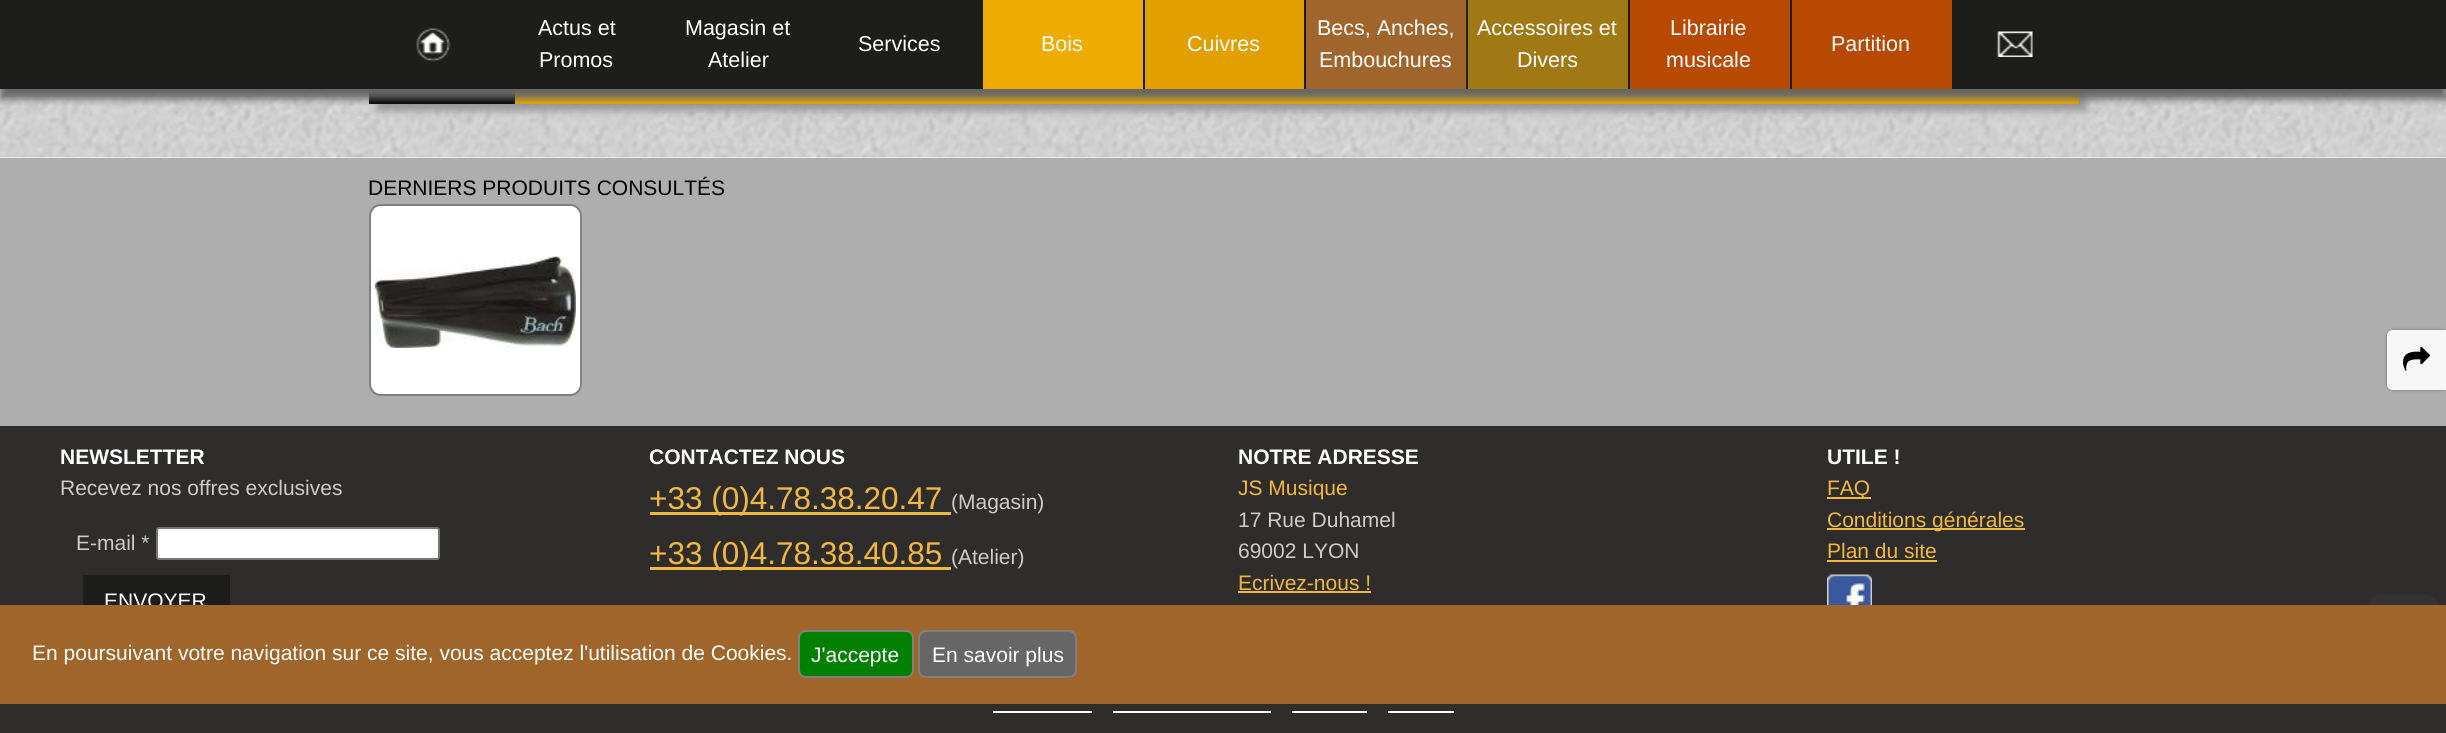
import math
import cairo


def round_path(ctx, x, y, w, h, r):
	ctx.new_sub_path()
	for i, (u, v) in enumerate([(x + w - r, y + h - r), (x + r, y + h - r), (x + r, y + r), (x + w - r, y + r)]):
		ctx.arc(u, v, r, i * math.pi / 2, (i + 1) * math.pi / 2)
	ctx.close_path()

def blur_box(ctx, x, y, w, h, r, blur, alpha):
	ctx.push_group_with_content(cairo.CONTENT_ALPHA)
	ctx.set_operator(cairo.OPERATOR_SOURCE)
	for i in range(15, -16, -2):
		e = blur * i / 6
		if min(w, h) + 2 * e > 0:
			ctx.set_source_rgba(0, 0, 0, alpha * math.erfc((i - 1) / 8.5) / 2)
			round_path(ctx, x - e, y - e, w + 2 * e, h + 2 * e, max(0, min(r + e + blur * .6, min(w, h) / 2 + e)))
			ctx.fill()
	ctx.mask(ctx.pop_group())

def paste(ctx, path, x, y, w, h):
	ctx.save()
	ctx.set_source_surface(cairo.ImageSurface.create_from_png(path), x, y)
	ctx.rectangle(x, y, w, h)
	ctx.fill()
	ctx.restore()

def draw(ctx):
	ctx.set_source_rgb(0.18, 0.176, 0.173)
	ctx.paint()
	ctx.set_source_rgb(1, 1, 1)
	ctx.rectangle(0, 157, 2446, 1)
	ctx.fill()
	paste(ctx, 'media/3.png', 0, 89, 2446, 69)
	ctx.set_source_rgb(0.6, 0.6, 0.6)
	blur_box(ctx, 377, 68, 1710, 43, 0, 4, 1)
	ctx.set_source_rgb(0.933, 0.671, 0.008)
	ctx.rectangle(515, 89, 1564, 15)
	ctx.fill()
	ctx.set_source_rgb(0, 0, 0)
	ctx.rectangle(369, 89, 146, 15)
	ctx.fill()
	ctx.set_source_rgb(0.4, 0.4, 0.4)
	blur_box(ctx, 0, 11, 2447, 88, 0, 4, 1)
	ctx.set_source_rgb(0.114, 0.114, 0.106)
	ctx.rectangle(0, 0, 2446, 89)
	ctx.fill()
	paste(ctx, 'media/1.png', 416, 28, 35, 34)
	ctx.select_font_face('Liberation Sans')
	ctx.set_font_size(21.5)
	ctx.set_source_rgb(1, 1, 1)
	for x, y, s in [
		(538, 35, 'Actus et'),
		(539, 67, 'Promos'),
		(685, 35, 'Magasin et'),
		(708, 67, 'Atelier'),
		(858, 51, 'Services'),
	]:
		ctx.move_to(x, y)
		ctx.show_text(s)
	ctx.set_source_rgb(0.933, 0.675, 0.008)
	ctx.rectangle(983, 0, 160, 89)
	ctx.fill()
	ctx.set_source_rgb(1, 1, 1)
	ctx.move_to(1041, 51)
	ctx.show_text('Bois')
	ctx.set_source_rgb(0.882, 0.624, 0)
	ctx.rectangle(1145, 0, 159, 89)
	ctx.fill()
	ctx.set_source_rgb(1, 1, 1)
	ctx.move_to(1187, 51)
	ctx.show_text('Cuivres')
	ctx.set_source_rgb(0.624, 0.396, 0.165)
	ctx.rectangle(1306, 0, 160, 89)
	ctx.fill()
	ctx.set_source_rgb(1, 1, 1)
	ctx.move_to(1317, 35)
	ctx.show_text('Becs, Anches,')
	ctx.move_to(1319, 67)
	ctx.show_text('Embouchures')
	ctx.set_source_rgb(0.631, 0.475, 0.082)
	ctx.rectangle(1468, 0, 160, 89)
	ctx.fill()
	ctx.set_source_rgb(1, 1, 1)
	ctx.move_to(1477, 35)
	ctx.show_text('Accessoires et')
	ctx.move_to(1517, 67)
	ctx.show_text('Divers')
	ctx.set_source_rgb(0.722, 0.286, 0)
	ctx.rectangle(1630, 0, 160, 89)
	ctx.fill()
	ctx.set_source_rgb(1, 1, 1)
	ctx.move_to(1670, 35)
	ctx.show_text('Librairie')
	ctx.move_to(1666, 67)
	ctx.show_text('musicale')
	ctx.set_source_rgb(0.722, 0.286, 0)
	ctx.rectangle(1792, 0, 160, 89)
	ctx.fill()
	ctx.set_source_rgb(1, 1, 1)
	ctx.move_to(1831, 51)
	ctx.show_text('Partition')
	paste(ctx, 'media/2.png', 1997, 31, 36, 26)
	ctx.set_source_rgb(0.682, 0.682, 0.682)
	ctx.rectangle(0, 158, 2446, 268)
	ctx.fill()
	ctx.set_font_size(21)
	ctx.set_source_rgb(0, 0, 0)
	ctx.move_to(368, 195)
	ctx.show_text('DERNIERS PRODUITS CONSULTÉS')
	ctx.set_source_rgb(1, 1, 1)
	round_path(ctx, 370, 205, 211, 190, 11)
	ctx.fill_preserve()
	ctx.set_source_rgb(0.502, 0.502, 0.502)
	ctx.stroke()
	paste(ctx, 'media/4.png', 375, 256, 201, 92)
	ctx.set_source_rgb(0, 0, 0)
	blur_box(ctx, 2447, 330, 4, 60, 0, 1.5, 0.4)
	ctx.save()
	ctx.set_fill_rule(cairo.FILL_RULE_EVEN_ODD)
	ctx.new_path()
	ctx.move_to(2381, 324)
	ctx.line_to(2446, 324)
	ctx.line_to(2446, 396)
	ctx.line_to(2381, 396)
	ctx.close_path()
	ctx.move_to(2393, 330)
	ctx.line_to(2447, 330)
	ctx.line_to(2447, 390)
	ctx.line_to(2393, 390)
	ctx.curve_to(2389.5, 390, 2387, 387.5, 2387, 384)
	ctx.line_to(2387, 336)
	ctx.curve_to(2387, 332.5, 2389.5, 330, 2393, 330)
	ctx.close_path()
	ctx.clip()
	blur_box(ctx, 2387, 330, 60, 60, 6, 1.5, 0.4)
	ctx.restore()
	ctx.set_source_rgba(1, 1, 1, 0.9)
	ctx.new_path()
	ctx.move_to(2393, 330)
	ctx.line_to(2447, 330)
	ctx.line_to(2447, 390)
	ctx.line_to(2393, 390)
	ctx.curve_to(2389.5, 390, 2387, 387.5, 2387, 384)
	ctx.line_to(2387, 336)
	ctx.curve_to(2387, 332.5, 2389.5, 330, 2393, 330)
	ctx.close_path()
	ctx.fill()
	paste(ctx, 'media/5.png', 2403, 346, 27, 25)
	ctx.select_font_face('Liberation Sans', cairo.FONT_SLANT_NORMAL, cairo.FONT_WEIGHT_BOLD)
	ctx.set_source_rgb(1, 1, 1)
	ctx.move_to(60, 464)
	ctx.show_text('NEWSLETTER')
	ctx.select_font_face('Liberation Sans')
	ctx.set_source_rgb(0.8, 0.8, 0.8)
	ctx.move_to(60, 495)
	ctx.show_text('Recevez nos offres exclusives')
	ctx.move_to(76, 550)
	ctx.show_text('E-mail *')
	ctx.set_source_rgb(1, 1, 1)
	round_path(ctx, 157, 528, 282, 31, 2)
	ctx.fill_preserve()
	ctx.set_source_rgb(0.463, 0.463, 0.463)
	ctx.stroke()
	ctx.set_source_rgb(0.114, 0.114, 0.106)
	ctx.rectangle(83, 575, 147, 30)
	ctx.fill()
	ctx.set_source_rgb(1, 1, 1)
	ctx.move_to(104, 608)
	ctx.show_text('ENVOYER')
	ctx.select_font_face('Liberation Sans', cairo.FONT_SLANT_NORMAL, cairo.FONT_WEIGHT_BOLD)
	ctx.move_to(649, 464)
	ctx.show_text('CONTACTEZ NOUS')
	ctx.set_source_rgb(0.945, 0.722, 0.243)
	ctx.rectangle(650, 512, 301, 3)
	ctx.fill()
	ctx.select_font_face('Liberation Sans')
	ctx.set_font_size(31.5)
	ctx.move_to(649, 509)
	ctx.show_text('+33 (0)4.78.38.20.47')
	ctx.set_font_size(21)
	ctx.set_source_rgb(0.8, 0.8, 0.8)
	ctx.move_to(951, 509)
	ctx.show_text('(Magasin)')
	ctx.set_source_rgb(0.945, 0.722, 0.243)
	ctx.rectangle(650, 567, 301, 3)
	ctx.fill()
	ctx.set_font_size(31.5)
	ctx.move_to(649, 564)
	ctx.show_text('+33 (0)4.78.38.40.85')
	ctx.set_font_size(21)
	ctx.set_source_rgb(0.8, 0.8, 0.8)
	ctx.move_to(951, 564)
	ctx.show_text('(Atelier)')
	ctx.select_font_face('Liberation Sans', cairo.FONT_SLANT_NORMAL, cairo.FONT_WEIGHT_BOLD)
	ctx.set_source_rgb(1, 1, 1)
	ctx.move_to(1238, 464)
	ctx.show_text('NOTRE ADRESSE')
	ctx.select_font_face('Liberation Sans')
	ctx.set_source_rgb(0.945, 0.722, 0.243)
	ctx.move_to(1238, 495)
	ctx.show_text('JS Musique')
	ctx.set_source_rgb(0.8, 0.8, 0.8)
	ctx.move_to(1238, 527)
	ctx.show_text('17 Rue Duhamel')
	ctx.move_to(1238, 558)
	ctx.show_text('69002 LYON')
	ctx.set_source_rgb(0.945, 0.722, 0.243)
	ctx.move_to(1238, 590)
	ctx.show_text('Ecrivez-nous !')
	ctx.rectangle(1238, 591, 133, 2)
	ctx.fill()
	ctx.select_font_face('Liberation Sans', cairo.FONT_SLANT_NORMAL, cairo.FONT_WEIGHT_BOLD)
	ctx.set_source_rgb(1, 1, 1)
	ctx.move_to(1827, 464)
	ctx.show_text('UTILE !')
	ctx.set_source_rgb(0.945, 0.722, 0.243)
	ctx.rectangle(1827, 497, 44, 2)
	ctx.fill()
	ctx.select_font_face('Liberation Sans')
	ctx.move_to(1827, 495)
	ctx.show_text('FAQ')
	ctx.rectangle(1827, 528, 198, 2)
	ctx.fill()
	ctx.move_to(1827, 527)
	ctx.show_text('Conditions générales')
	ctx.move_to(1827, 558)
	ctx.show_text('Plan du site')
	ctx.rectangle(1827, 560, 110, 2)
	ctx.fill()
	paste(ctx, 'media/6.png', 1827, 574, 45, 31)
	paste(ctx, 'media/7.png', 2367, 594, 72, 11)
	ctx.set_source_rgb(0.624, 0.396, 0.165)
	ctx.rectangle(0, 605, 2446, 99)
	ctx.fill()
	ctx.set_source_rgb(1, 1, 1)
	ctx.move_to(32, 660)
	ctx.show_text('En poursuivant votre navigation sur ce site, vous acceptez l\'utilisation de Cookies.')
	ctx.set_source_rgb(0, 0.502, 0)
	round_path(ctx, 799, 631, 114, 46, 7)
	ctx.fill_preserve()
	ctx.set_source_rgb(0.502, 0.502, 0.502)
	ctx.stroke()
	ctx.set_source_rgb(1, 1, 1)
	ctx.move_to(811, 662)
	ctx.show_text('J\'accepte')
	ctx.set_source_rgb(0.4, 0.4, 0.4)
	round_path(ctx, 919, 631, 157, 46, 7)
	ctx.fill_preserve()
	ctx.set_source_rgb(0.502, 0.502, 0.502)
	ctx.stroke()
	ctx.set_source_rgb(1, 1, 1)
	ctx.move_to(932, 662)
	ctx.show_text('En savoir plus')
	ctx.rectangle(993, 711, 99, 2)
	ctx.rectangle(1113, 711, 158, 2)
	ctx.rectangle(1292, 711, 75, 2)
	ctx.rectangle(1388, 711, 66, 2)
	ctx.fill()


surface = cairo.ImageSurface(cairo.FORMAT_RGB24, 2446, 733)
ctx = cairo.Context(surface)
options = cairo.FontOptions()
options.set_hint_metrics(cairo.HINT_METRICS_OFF)
options.set_hint_style(cairo.HINT_STYLE_NONE)
ctx.set_font_options(options)
ctx.set_miter_limit(4)
draw(ctx)
surface.write_to_png('image.png')
